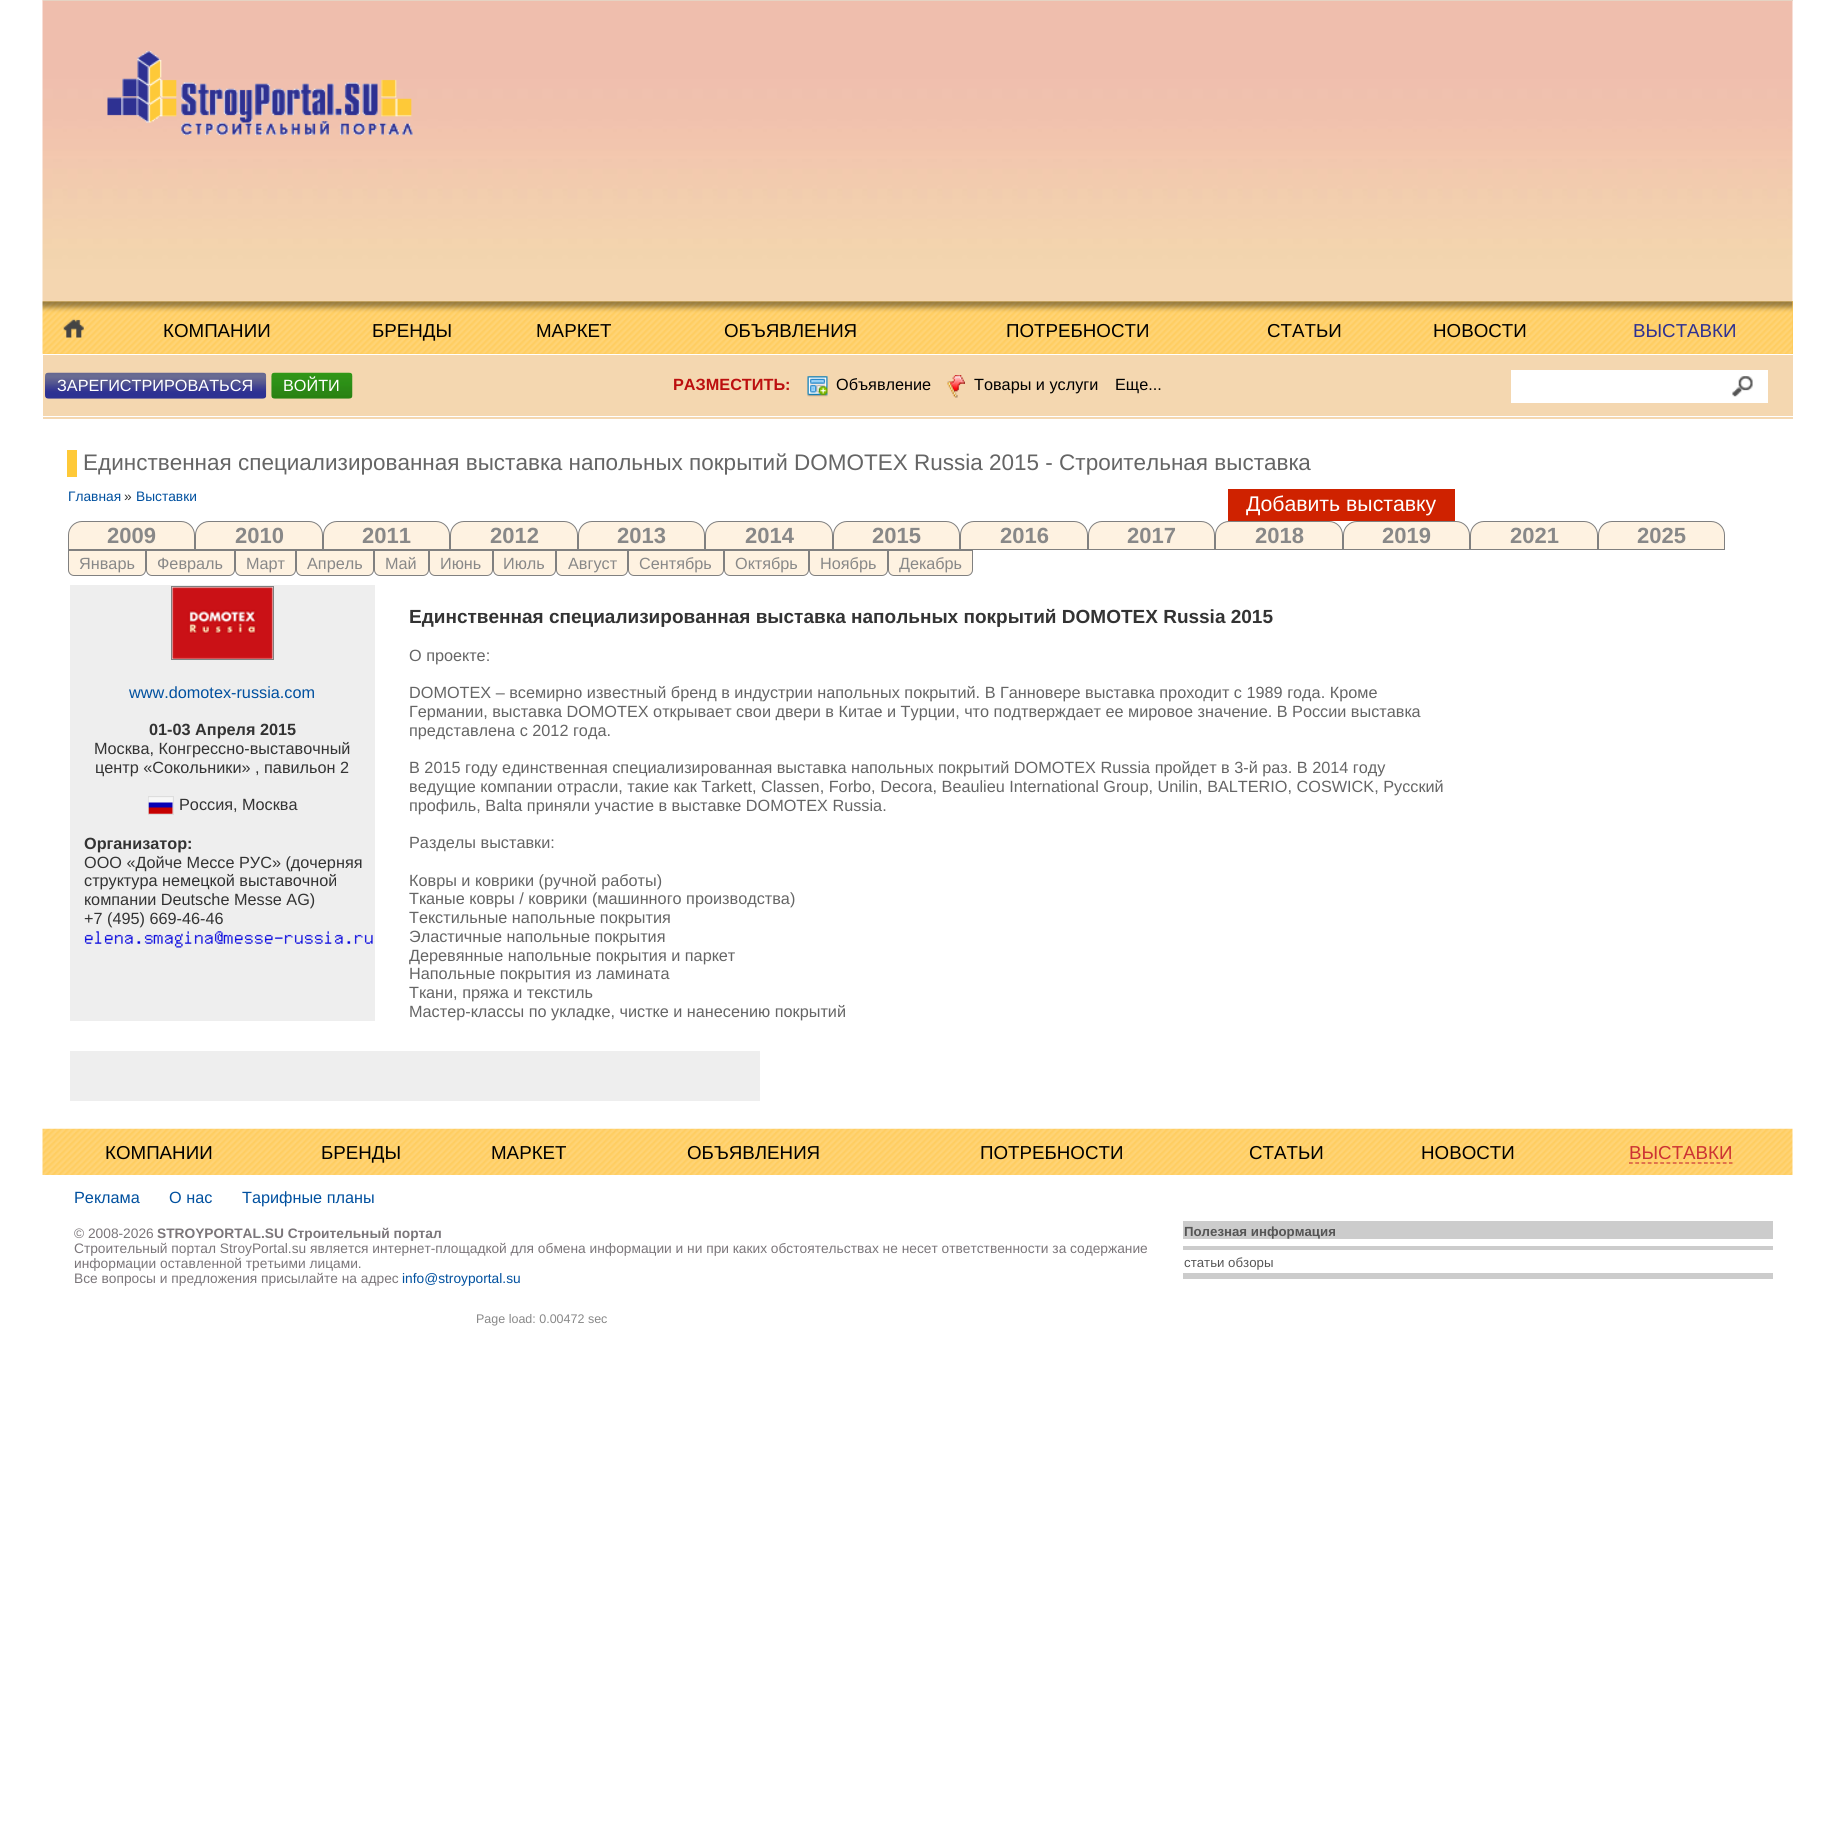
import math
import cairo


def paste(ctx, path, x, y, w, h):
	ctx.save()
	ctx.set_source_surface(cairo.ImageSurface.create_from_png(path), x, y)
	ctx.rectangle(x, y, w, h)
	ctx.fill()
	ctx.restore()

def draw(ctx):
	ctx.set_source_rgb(1, 1, 1)
	ctx.paint()
	ctx.set_source_rgb(1, 0.784, 0.318)
	ctx.rectangle(43, 301, 1750, 53)
	ctx.fill()
	paste(ctx, 'media/3.png', 42, 301, 1751, 53)
	paste(ctx, 'media/1.png', 42, 0, 1751, 302)
	ctx.set_source_rgb(0.898, 0.827, 0.765)
	ctx.rectangle(43, 0, 1750, 1)
	ctx.fill()
	paste(ctx, 'media/2.png', 107, 51, 306, 84)
	paste(ctx, 'media/4.png', 63, 318, 21, 20)
	ctx.select_font_face('Liberation Sans')
	ctx.set_font_size(18.75)
	ctx.set_source_rgb(0, 0, 0)
	for x, y, s in [
		(163, 337, 'КОМПАНИИ'),
		(372, 337, 'БРЕНДЫ'),
		(536, 337, 'МАРКЕТ'),
		(724, 337, 'ОБЪЯВЛЕНИЯ'),
		(1006, 337, 'ПОТРЕБНОСТИ'),
		(1267, 337, 'СТАТЬИ'),
		(1433, 337, 'НОВОСТИ'),
	]:
		ctx.move_to(x, y)
		ctx.show_text(s)
	ctx.set_source_rgb(0.18, 0.192, 0.573)
	ctx.move_to(1633, 337)
	ctx.show_text('ВЫСТАВКИ')
	ctx.set_source_rgb(0.957, 0.843, 0.69)
	ctx.rectangle(43, 355, 1750, 64)
	ctx.fill()
	ctx.set_source_rgb(1, 1, 1)
	ctx.rectangle(43, 416, 1750, 1)
	ctx.fill()
	paste(ctx, 'media/5.png', 45, 372, 222, 27)
	paste(ctx, 'media/6.png', 271, 372, 82, 27)
	ctx.set_font_size(16.25)
	ctx.move_to(57, 391)
	ctx.show_text('ЗАРЕГИСТРИРОВАТЬСЯ')
	ctx.move_to(283, 391)
	ctx.show_text('ВОЙТИ')
	ctx.select_font_face('Liberation Sans', cairo.FONT_SLANT_NORMAL, cairo.FONT_WEIGHT_BOLD)
	ctx.set_source_rgb(0.737, 0.059, 0.059)
	ctx.move_to(673, 390)
	ctx.show_text('РАЗМЕСТИТЬ:')
	paste(ctx, 'media/7.png', 807, 376, 21, 21)
	ctx.select_font_face('Liberation Sans')
	ctx.set_source_rgb(0, 0, 0)
	ctx.move_to(836, 390)
	ctx.show_text('Объявление')
	paste(ctx, 'media/8.png', 947, 375, 18, 23)
	ctx.move_to(974, 390)
	ctx.show_text('Товары и услуги')
	ctx.move_to(1115, 390)
	ctx.show_text('Еще...')
	ctx.set_source_rgb(1, 1, 1)
	ctx.rectangle(1511, 370, 257, 33)
	ctx.fill()
	paste(ctx, 'media/9.png', 1732, 376, 21, 21)
	ctx.set_source_rgb(0.996, 0.788, 0.22)
	ctx.rectangle(67, 450, 10, 27)
	ctx.fill()
	ctx.set_font_size(22.5)
	ctx.set_source_rgb(0.396, 0.396, 0.396)
	ctx.move_to(83, 470)
	ctx.show_text('Единственная специализированная выставка напольных покрытий DOMOTEX Russia 2015 - Строительная выставка')
	ctx.set_font_size(13.75)
	ctx.set_source_rgb(0, 0.314, 0.624)
	ctx.move_to(68, 501)
	ctx.show_text('Главная')
	ctx.set_source_rgb(0.2, 0.2, 0.2)
	ctx.move_to(124, 501)
	ctx.show_text('»')
	ctx.set_source_rgb(0, 0.314, 0.624)
	ctx.move_to(136, 501)
	ctx.show_text('Выставки')
	ctx.set_source_rgb(0.812, 0.133, 0)
	ctx.rectangle(1228, 489, 227, 32)
	ctx.fill()
	ctx.set_font_size(21.25)
	ctx.set_source_rgb(1, 1, 1)
	ctx.move_to(1246, 511)
	ctx.show_text('Добавить выставку')
	ctx.set_source_rgb(0.996, 0.949, 0.882)
	ctx.new_path()
	ctx.move_to(82, 521.5)
	ctx.line_to(181, 521.5)
	ctx.curve_to(188.5, 521.5, 194.5, 527.5, 194.5, 535)
	ctx.line_to(194.5, 549.5)
	ctx.line_to(68.5, 549.5)
	ctx.line_to(68.5, 535)
	ctx.curve_to(68.5, 527.5, 74.5, 521.5, 82, 521.5)
	ctx.close_path()
	ctx.fill_preserve()
	ctx.set_source_rgb(0.502, 0.502, 0.502)
	ctx.set_line_width(1)
	ctx.stroke()
	ctx.select_font_face('Liberation Sans', cairo.FONT_SLANT_NORMAL, cairo.FONT_WEIGHT_BOLD)
	ctx.set_font_size(22)
	ctx.set_source_rgb(0.533, 0.533, 0.533)
	ctx.move_to(107, 543)
	ctx.show_text('2009')
	ctx.set_source_rgb(0.996, 0.949, 0.882)
	ctx.new_path()
	ctx.move_to(209, 521.5)
	ctx.line_to(309, 521.5)
	ctx.curve_to(316.5, 521.5, 322.5, 527.5, 322.5, 535)
	ctx.line_to(322.5, 549.5)
	ctx.line_to(195.5, 549.5)
	ctx.line_to(195.5, 535)
	ctx.curve_to(195.5, 527.5, 201.5, 521.5, 209, 521.5)
	ctx.close_path()
	ctx.fill_preserve()
	ctx.set_source_rgb(0.502, 0.502, 0.502)
	ctx.stroke()
	ctx.set_source_rgb(0.533, 0.533, 0.533)
	ctx.move_to(235, 543)
	ctx.show_text('2010')
	ctx.set_source_rgb(0.996, 0.949, 0.882)
	ctx.new_path()
	ctx.move_to(337, 521.5)
	ctx.line_to(436, 521.5)
	ctx.curve_to(443.5, 521.5, 449.5, 527.5, 449.5, 535)
	ctx.line_to(449.5, 549.5)
	ctx.line_to(323.5, 549.5)
	ctx.line_to(323.5, 535)
	ctx.curve_to(323.5, 527.5, 329.5, 521.5, 337, 521.5)
	ctx.close_path()
	ctx.fill_preserve()
	ctx.set_source_rgb(0.502, 0.502, 0.502)
	ctx.stroke()
	ctx.set_source_rgb(0.533, 0.533, 0.533)
	ctx.move_to(362, 543)
	ctx.show_text('2011')
	ctx.set_source_rgb(0.996, 0.949, 0.882)
	ctx.new_path()
	ctx.move_to(464, 521.5)
	ctx.line_to(564, 521.5)
	ctx.curve_to(571.5, 521.5, 577.5, 527.5, 577.5, 535)
	ctx.line_to(577.5, 549.5)
	ctx.line_to(450.5, 549.5)
	ctx.line_to(450.5, 535)
	ctx.curve_to(450.5, 527.5, 456.5, 521.5, 464, 521.5)
	ctx.close_path()
	ctx.fill_preserve()
	ctx.set_source_rgb(0.502, 0.502, 0.502)
	ctx.stroke()
	ctx.set_source_rgb(0.533, 0.533, 0.533)
	ctx.move_to(490, 543)
	ctx.show_text('2012')
	ctx.set_source_rgb(0.996, 0.949, 0.882)
	ctx.new_path()
	ctx.move_to(592, 521.5)
	ctx.line_to(691, 521.5)
	ctx.curve_to(698.5, 521.5, 704.5, 527.5, 704.5, 535)
	ctx.line_to(704.5, 549.5)
	ctx.line_to(578.5, 549.5)
	ctx.line_to(578.5, 535)
	ctx.curve_to(578.5, 527.5, 584.5, 521.5, 592, 521.5)
	ctx.close_path()
	ctx.fill_preserve()
	ctx.set_source_rgb(0.502, 0.502, 0.502)
	ctx.stroke()
	ctx.set_source_rgb(0.533, 0.533, 0.533)
	ctx.move_to(617, 543)
	ctx.show_text('2013')
	ctx.set_source_rgb(0.996, 0.949, 0.882)
	ctx.new_path()
	ctx.move_to(719, 521.5)
	ctx.line_to(819, 521.5)
	ctx.curve_to(826.5, 521.5, 832.5, 527.5, 832.5, 535)
	ctx.line_to(832.5, 549.5)
	ctx.line_to(705.5, 549.5)
	ctx.line_to(705.5, 535)
	ctx.curve_to(705.5, 527.5, 711.5, 521.5, 719, 521.5)
	ctx.close_path()
	ctx.fill_preserve()
	ctx.set_source_rgb(0.502, 0.502, 0.502)
	ctx.stroke()
	ctx.set_source_rgb(0.533, 0.533, 0.533)
	ctx.move_to(745, 543)
	ctx.show_text('2014')
	ctx.set_source_rgb(0.996, 0.949, 0.882)
	ctx.new_path()
	ctx.move_to(847, 521.5)
	ctx.line_to(946, 521.5)
	ctx.curve_to(953.5, 521.5, 959.5, 527.5, 959.5, 535)
	ctx.line_to(959.5, 549.5)
	ctx.line_to(833.5, 549.5)
	ctx.line_to(833.5, 535)
	ctx.curve_to(833.5, 527.5, 839.5, 521.5, 847, 521.5)
	ctx.close_path()
	ctx.fill_preserve()
	ctx.set_source_rgb(0.502, 0.502, 0.502)
	ctx.stroke()
	ctx.set_source_rgb(0.533, 0.533, 0.533)
	ctx.move_to(872, 543)
	ctx.show_text('2015')
	ctx.set_source_rgb(0.996, 0.949, 0.882)
	ctx.new_path()
	ctx.move_to(974, 521.5)
	ctx.line_to(1074, 521.5)
	ctx.curve_to(1081.5, 521.5, 1087.5, 527.5, 1087.5, 535)
	ctx.line_to(1087.5, 549.5)
	ctx.line_to(960.5, 549.5)
	ctx.line_to(960.5, 535)
	ctx.curve_to(960.5, 527.5, 966.5, 521.5, 974, 521.5)
	ctx.close_path()
	ctx.fill_preserve()
	ctx.set_source_rgb(0.502, 0.502, 0.502)
	ctx.stroke()
	ctx.set_source_rgb(0.533, 0.533, 0.533)
	ctx.move_to(1000, 543)
	ctx.show_text('2016')
	ctx.set_source_rgb(0.996, 0.949, 0.882)
	ctx.new_path()
	ctx.move_to(1102, 521.5)
	ctx.line_to(1201, 521.5)
	ctx.curve_to(1208.5, 521.5, 1214.5, 527.5, 1214.5, 535)
	ctx.line_to(1214.5, 549.5)
	ctx.line_to(1088.5, 549.5)
	ctx.line_to(1088.5, 535)
	ctx.curve_to(1088.5, 527.5, 1094.5, 521.5, 1102, 521.5)
	ctx.close_path()
	ctx.fill_preserve()
	ctx.set_source_rgb(0.502, 0.502, 0.502)
	ctx.stroke()
	ctx.set_source_rgb(0.533, 0.533, 0.533)
	ctx.move_to(1127, 543)
	ctx.show_text('2017')
	ctx.set_source_rgb(0.996, 0.949, 0.882)
	ctx.new_path()
	ctx.move_to(1229, 521.5)
	ctx.line_to(1329, 521.5)
	ctx.curve_to(1336.5, 521.5, 1342.5, 527.5, 1342.5, 535)
	ctx.line_to(1342.5, 549.5)
	ctx.line_to(1215.5, 549.5)
	ctx.line_to(1215.5, 535)
	ctx.curve_to(1215.5, 527.5, 1221.5, 521.5, 1229, 521.5)
	ctx.close_path()
	ctx.fill_preserve()
	ctx.set_source_rgb(0.502, 0.502, 0.502)
	ctx.stroke()
	ctx.set_source_rgb(0.533, 0.533, 0.533)
	ctx.move_to(1255, 543)
	ctx.show_text('2018')
	ctx.set_source_rgb(0.996, 0.949, 0.882)
	ctx.new_path()
	ctx.move_to(1357, 521.5)
	ctx.line_to(1456, 521.5)
	ctx.curve_to(1463.5, 521.5, 1469.5, 527.5, 1469.5, 535)
	ctx.line_to(1469.5, 549.5)
	ctx.line_to(1343.5, 549.5)
	ctx.line_to(1343.5, 535)
	ctx.curve_to(1343.5, 527.5, 1349.5, 521.5, 1357, 521.5)
	ctx.close_path()
	ctx.fill_preserve()
	ctx.set_source_rgb(0.502, 0.502, 0.502)
	ctx.stroke()
	ctx.set_source_rgb(0.533, 0.533, 0.533)
	ctx.move_to(1382, 543)
	ctx.show_text('2019')
	ctx.set_source_rgb(0.996, 0.949, 0.882)
	ctx.new_path()
	ctx.move_to(1484, 521.5)
	ctx.line_to(1584, 521.5)
	ctx.curve_to(1591.5, 521.5, 1597.5, 527.5, 1597.5, 535)
	ctx.line_to(1597.5, 549.5)
	ctx.line_to(1470.5, 549.5)
	ctx.line_to(1470.5, 535)
	ctx.curve_to(1470.5, 527.5, 1476.5, 521.5, 1484, 521.5)
	ctx.close_path()
	ctx.fill_preserve()
	ctx.set_source_rgb(0.502, 0.502, 0.502)
	ctx.stroke()
	ctx.set_source_rgb(0.533, 0.533, 0.533)
	ctx.move_to(1510, 543)
	ctx.show_text('2021')
	ctx.set_source_rgb(0.996, 0.949, 0.882)
	ctx.new_path()
	ctx.move_to(1612, 521.5)
	ctx.line_to(1711, 521.5)
	ctx.curve_to(1718.5, 521.5, 1724.5, 527.5, 1724.5, 535)
	ctx.line_to(1724.5, 549.5)
	ctx.line_to(1598.5, 549.5)
	ctx.line_to(1598.5, 535)
	ctx.curve_to(1598.5, 527.5, 1604.5, 521.5, 1612, 521.5)
	ctx.close_path()
	ctx.fill_preserve()
	ctx.set_source_rgb(0.502, 0.502, 0.502)
	ctx.stroke()
	ctx.set_source_rgb(0.533, 0.533, 0.533)
	ctx.move_to(1637, 543)
	ctx.show_text('2025')
	ctx.set_source_rgb(0.996, 0.949, 0.882)
	ctx.new_path()
	ctx.move_to(68.5, 550.5)
	ctx.line_to(145.5, 550.5)
	ctx.line_to(145.5, 570)
	ctx.curve_to(145.5, 573, 143, 575.5, 140, 575.5)
	ctx.line_to(74, 575.5)
	ctx.curve_to(71, 575.5, 68.5, 573, 68.5, 570)
	ctx.close_path()
	ctx.fill_preserve()
	ctx.set_source_rgb(0.502, 0.502, 0.502)
	ctx.stroke()
	ctx.select_font_face('Liberation Sans')
	ctx.set_font_size(16.25)
	ctx.set_source_rgb(0.533, 0.533, 0.533)
	ctx.move_to(79, 569)
	ctx.show_text('Январь')
	ctx.set_source_rgb(0.996, 0.949, 0.882)
	ctx.new_path()
	ctx.move_to(146.5, 550.5)
	ctx.line_to(234.5, 550.5)
	ctx.line_to(234.5, 570)
	ctx.curve_to(234.5, 573, 232, 575.5, 229, 575.5)
	ctx.line_to(152, 575.5)
	ctx.curve_to(149, 575.5, 146.5, 573, 146.5, 570)
	ctx.close_path()
	ctx.fill_preserve()
	ctx.set_source_rgb(0.502, 0.502, 0.502)
	ctx.stroke()
	ctx.set_source_rgb(0.533, 0.533, 0.533)
	ctx.move_to(157, 569)
	ctx.show_text('Февраль')
	ctx.set_source_rgb(0.996, 0.949, 0.882)
	ctx.new_path()
	ctx.move_to(235.5, 550.5)
	ctx.line_to(295.5, 550.5)
	ctx.line_to(295.5, 570)
	ctx.curve_to(295.5, 573, 293, 575.5, 290, 575.5)
	ctx.line_to(241, 575.5)
	ctx.curve_to(238, 575.5, 235.5, 573, 235.5, 570)
	ctx.close_path()
	ctx.fill_preserve()
	ctx.set_source_rgb(0.502, 0.502, 0.502)
	ctx.stroke()
	ctx.set_source_rgb(0.533, 0.533, 0.533)
	ctx.move_to(246, 569)
	ctx.show_text('Март')
	ctx.set_source_rgb(0.996, 0.949, 0.882)
	ctx.new_path()
	ctx.move_to(296.5, 550.5)
	ctx.line_to(373.5, 550.5)
	ctx.line_to(373.5, 570)
	ctx.curve_to(373.5, 573, 371, 575.5, 368, 575.5)
	ctx.line_to(302, 575.5)
	ctx.curve_to(299, 575.5, 296.5, 573, 296.5, 570)
	ctx.close_path()
	ctx.fill_preserve()
	ctx.set_source_rgb(0.502, 0.502, 0.502)
	ctx.stroke()
	ctx.set_source_rgb(0.533, 0.533, 0.533)
	ctx.move_to(307, 569)
	ctx.show_text('Апрель')
	ctx.set_source_rgb(0.996, 0.949, 0.882)
	ctx.new_path()
	ctx.move_to(374.5, 550.5)
	ctx.line_to(428.5, 550.5)
	ctx.line_to(428.5, 570)
	ctx.curve_to(428.5, 573, 426, 575.5, 423, 575.5)
	ctx.line_to(380, 575.5)
	ctx.curve_to(377, 575.5, 374.5, 573, 374.5, 570)
	ctx.close_path()
	ctx.fill_preserve()
	ctx.set_source_rgb(0.502, 0.502, 0.502)
	ctx.stroke()
	ctx.set_source_rgb(0.533, 0.533, 0.533)
	ctx.move_to(385, 569)
	ctx.show_text('Май')
	ctx.set_source_rgb(0.996, 0.949, 0.882)
	ctx.new_path()
	ctx.move_to(429.5, 550.5)
	ctx.line_to(492.5, 550.5)
	ctx.line_to(492.5, 570)
	ctx.curve_to(492.5, 573, 490, 575.5, 487, 575.5)
	ctx.line_to(435, 575.5)
	ctx.curve_to(432, 575.5, 429.5, 573, 429.5, 570)
	ctx.close_path()
	ctx.fill_preserve()
	ctx.set_source_rgb(0.502, 0.502, 0.502)
	ctx.stroke()
	ctx.set_source_rgb(0.533, 0.533, 0.533)
	ctx.move_to(440, 569)
	ctx.show_text('Июнь')
	ctx.set_source_rgb(0.996, 0.949, 0.882)
	ctx.new_path()
	ctx.move_to(493.5, 550.5)
	ctx.line_to(555.5, 550.5)
	ctx.line_to(555.5, 570)
	ctx.curve_to(555.5, 573, 553, 575.5, 550, 575.5)
	ctx.line_to(499, 575.5)
	ctx.curve_to(496, 575.5, 493.5, 573, 493.5, 570)
	ctx.close_path()
	ctx.fill_preserve()
	ctx.set_source_rgb(0.502, 0.502, 0.502)
	ctx.stroke()
	ctx.set_source_rgb(0.533, 0.533, 0.533)
	ctx.move_to(503, 569)
	ctx.show_text('Июль')
	ctx.set_source_rgb(0.996, 0.949, 0.882)
	ctx.new_path()
	ctx.move_to(556.5, 550.5)
	ctx.line_to(627.5, 550.5)
	ctx.line_to(627.5, 570)
	ctx.curve_to(627.5, 573, 625, 575.5, 622, 575.5)
	ctx.line_to(562, 575.5)
	ctx.curve_to(559, 575.5, 556.5, 573, 556.5, 570)
	ctx.close_path()
	ctx.fill_preserve()
	ctx.set_source_rgb(0.502, 0.502, 0.502)
	ctx.stroke()
	ctx.set_source_rgb(0.533, 0.533, 0.533)
	ctx.move_to(568, 569)
	ctx.show_text('Август')
	ctx.set_source_rgb(0.996, 0.949, 0.882)
	ctx.new_path()
	ctx.move_to(628.5, 550.5)
	ctx.line_to(723.5, 550.5)
	ctx.line_to(723.5, 570)
	ctx.curve_to(723.5, 573, 721, 575.5, 718, 575.5)
	ctx.line_to(634, 575.5)
	ctx.curve_to(631, 575.5, 628.5, 573, 628.5, 570)
	ctx.close_path()
	ctx.fill_preserve()
	ctx.set_source_rgb(0.502, 0.502, 0.502)
	ctx.stroke()
	ctx.set_source_rgb(0.533, 0.533, 0.533)
	ctx.move_to(639, 569)
	ctx.show_text('Сентябрь')
	ctx.set_source_rgb(0.996, 0.949, 0.882)
	ctx.new_path()
	ctx.move_to(724.5, 550.5)
	ctx.line_to(808.5, 550.5)
	ctx.line_to(808.5, 570)
	ctx.curve_to(808.5, 573, 806, 575.5, 803, 575.5)
	ctx.line_to(730, 575.5)
	ctx.curve_to(727, 575.5, 724.5, 573, 724.5, 570)
	ctx.close_path()
	ctx.fill_preserve()
	ctx.set_source_rgb(0.502, 0.502, 0.502)
	ctx.stroke()
	ctx.set_source_rgb(0.533, 0.533, 0.533)
	ctx.move_to(735, 569)
	ctx.show_text('Октябрь')
	ctx.set_source_rgb(0.996, 0.949, 0.882)
	ctx.new_path()
	ctx.move_to(809.5, 550.5)
	ctx.line_to(887.5, 550.5)
	ctx.line_to(887.5, 570)
	ctx.curve_to(887.5, 573, 885, 575.5, 882, 575.5)
	ctx.line_to(815, 575.5)
	ctx.curve_to(812, 575.5, 809.5, 573, 809.5, 570)
	ctx.close_path()
	ctx.fill_preserve()
	ctx.set_source_rgb(0.502, 0.502, 0.502)
	ctx.stroke()
	ctx.set_source_rgb(0.533, 0.533, 0.533)
	ctx.move_to(820, 569)
	ctx.show_text('Ноябрь')
	ctx.set_source_rgb(0.996, 0.949, 0.882)
	ctx.new_path()
	ctx.move_to(888.5, 550.5)
	ctx.line_to(972.5, 550.5)
	ctx.line_to(972.5, 570)
	ctx.curve_to(972.5, 573, 970, 575.5, 967, 575.5)
	ctx.line_to(894, 575.5)
	ctx.curve_to(891, 575.5, 888.5, 573, 888.5, 570)
	ctx.close_path()
	ctx.fill_preserve()
	ctx.set_source_rgb(0.502, 0.502, 0.502)
	ctx.stroke()
	ctx.set_source_rgb(0.533, 0.533, 0.533)
	ctx.move_to(899, 569)
	ctx.show_text('Декабрь')
	ctx.set_source_rgb(0.933, 0.933, 0.933)
	ctx.rectangle(70, 585, 305, 436)
	ctx.fill()
	ctx.rectangle(171.5, 586.5, 102, 73)
	ctx.set_source_rgb(0.502, 0.502, 0.502)
	ctx.stroke()
	paste(ctx, 'media/10.png', 172, 587, 101, 72)
	ctx.set_source_rgb(0, 0.314, 0.624)
	ctx.move_to(129, 698)
	ctx.show_text('www.domotex-russia.com')
	ctx.select_font_face('Liberation Sans', cairo.FONT_SLANT_NORMAL, cairo.FONT_WEIGHT_BOLD)
	ctx.set_source_rgb(0.2, 0.2, 0.2)
	ctx.move_to(149, 735)
	ctx.show_text('01-03 Апреля 2015')
	ctx.select_font_face('Liberation Sans')
	ctx.move_to(94, 754)
	ctx.show_text('Москва, Конгрессно-выставочный')
	ctx.move_to(95, 773)
	ctx.show_text('центр «Сокольники» , павильон 2')
	ctx.rectangle(148.5, 796.5, 25, 18)
	ctx.set_source_rgb(0.867, 0.867, 0.867)
	ctx.stroke()
	paste(ctx, 'media/11.png', 148, 797, 25, 17)
	ctx.set_source_rgb(0.2, 0.2, 0.2)
	ctx.move_to(179, 810)
	ctx.show_text('Россия, Москва')
	ctx.select_font_face('Liberation Sans', cairo.FONT_SLANT_NORMAL, cairo.FONT_WEIGHT_BOLD)
	ctx.move_to(84, 849)
	ctx.show_text('Организатор:')
	ctx.select_font_face('Liberation Sans')
	for x, y, s in [
		(84, 868, 'ООО «Дойче Мессе РУС» (дочерняя'),
		(84, 886, 'структура немецкой выставочной'),
		(84, 905, 'компании Deutsche Messe AG)'),
		(84, 924, '+7 (495) 669-46-46'),
	]:
		ctx.move_to(x, y)
		ctx.show_text(s)
	paste(ctx, 'media/12.png', 84, 931, 289, 17)
	ctx.select_font_face('Liberation Sans', cairo.FONT_SLANT_NORMAL, cairo.FONT_WEIGHT_BOLD)
	ctx.set_font_size(19)
	ctx.move_to(409, 623)
	ctx.show_text('Единственная специализированная выставка напольных покрытий DOMOTEX Russia 2015')
	ctx.select_font_face('Liberation Sans')
	ctx.set_font_size(16.25)
	ctx.set_source_rgb(0.396, 0.396, 0.396)
	for x, y, s in [
		(409, 661, 'О проекте:'),
		(409, 698, 'DOMOTEX – всемирно известный бренд в индустрии напольных покрытий. В Ганновере выставка проходит с 1989 года. Кроме'),
		(409, 717, 'Германии, выставка DOMOTEX открывает свои двери в Китае и Турции, что подтверждает ее мировое значение. В России выставка'),
		(409, 736, 'представлена с 2012 года.'),
		(409, 773, 'В 2015 году единственная специализированная выставка напольных покрытий DOMOTEX Russia пройдет в 3-й раз. В 2014 году'),
		(409, 792, 'ведущие компании отрасли, такие как Tarkett, Classen, Forbo, Decora, Beaulieu International Group, Unilin, BALTERIO, COSWICK, Русский'),
		(409, 811, 'профиль, Balta приняли участие в выставке DOMOTEX Russia.'),
		(409, 848, 'Разделы выставки:'),
		(409, 886, 'Ковры и коврики (ручной работы)'),
		(409, 904, 'Тканые ковры / коврики (машинного производства)'),
		(409, 923, 'Текстильные напольные покрытия'),
		(409, 942, 'Эластичные напольные покрытия'),
		(409, 961, 'Деревянные напольные покрытия и паркет'),
		(409, 979, 'Напольные покрытия из ламината'),
		(409, 998, 'Ткани, пряжа и текстиль'),
		(409, 1017, 'Мастер-классы по укладке, чистке и нанесению покрытий'),
	]:
		ctx.move_to(x, y)
		ctx.show_text(s)
	ctx.set_source_rgb(0.933, 0.933, 0.933)
	ctx.rectangle(70, 1051, 690, 50)
	ctx.fill()
	paste(ctx, 'media/13.png', 42, 1128, 1751, 47)
	ctx.set_font_size(18.75)
	ctx.set_source_rgb(0, 0, 0)
	for x, y, s in [
		(105, 1159, 'КОМПАНИИ'),
		(321, 1159, 'БРЕНДЫ'),
		(491, 1159, 'МАРКЕТ'),
		(687, 1159, 'ОБЪЯВЛЕНИЯ'),
		(980, 1159, 'ПОТРЕБНОСТИ'),
		(1249, 1159, 'СТАТЬИ'),
		(1421, 1159, 'НОВОСТИ'),
	]:
		ctx.move_to(x, y)
		ctx.show_text(s)
	ctx.set_source_rgb(0.8, 0.2, 0.2)
	ctx.move_to(1629, 1159)
	ctx.show_text('ВЫСТАВКИ')
	ctx.new_path()
	ctx.move_to(1629, 1163)
	ctx.line_to(1732.5, 1163)
	ctx.set_line_width(1.2)
	ctx.set_dash([3.75, 2.5])
	ctx.stroke()
	ctx.set_font_size(16.25)
	ctx.set_source_rgb(0, 0.314, 0.624)
	for x, y, s in [
		(74, 1203, 'Реклама'),
		(169, 1203, 'О нас'),
		(242, 1203, 'Тарифные планы'),
	]:
		ctx.move_to(x, y)
		ctx.show_text(s)
	ctx.set_font_size(13.75)
	ctx.set_source_rgb(0.482, 0.463, 0.478)
	ctx.move_to(74, 1238)
	ctx.show_text('© 2008-2026')
	ctx.select_font_face('Liberation Sans', cairo.FONT_SLANT_NORMAL, cairo.FONT_WEIGHT_BOLD)
	ctx.move_to(157, 1238)
	ctx.show_text('STROYPORTAL.SU Строительный портал')
	ctx.select_font_face('Liberation Sans')
	for x, y, s in [
		(74, 1253, 'Строительный портал StroyPortal.su является интернет-площадкой для обмена информации и ни при каких обстоятельствах не несет ответственности за содержание'),
		(74, 1268, 'информации оставленной третьими лицами.'),
		(74, 1283, 'Все вопросы и предложения присылайте на адрес'),
	]:
		ctx.move_to(x, y)
		ctx.show_text(s)
	ctx.set_source_rgb(0, 0.314, 0.624)
	ctx.move_to(402, 1283)
	ctx.show_text('info@stroyportal.su')
	ctx.set_font_size(12.5)
	ctx.set_source_rgb(0.533, 0.533, 0.533)
	ctx.move_to(476, 1323)
	ctx.show_text('Page load: 0.00472 sec')
	ctx.set_source_rgb(0.8, 0.8, 0.8)
	ctx.rectangle(1183, 1221, 590, 18)
	ctx.fill()
	ctx.select_font_face('Liberation Sans', cairo.FONT_SLANT_NORMAL, cairo.FONT_WEIGHT_BOLD)
	ctx.set_font_size(13.25)
	ctx.set_source_rgb(0.333, 0.333, 0.333)
	ctx.move_to(1184, 1236)
	ctx.show_text('Полезная информация')
	ctx.set_source_rgb(0.8, 0.8, 0.8)
	ctx.rectangle(1183, 1246, 590, 4)
	ctx.fill()
	ctx.select_font_face('Liberation Sans')
	ctx.set_source_rgb(0.333, 0.333, 0.333)
	ctx.move_to(1184, 1267)
	ctx.show_text('статьи обзоры')
	ctx.set_source_rgb(0.8, 0.8, 0.8)
	ctx.rectangle(1183, 1273, 590, 6)
	ctx.fill()


surface = cairo.ImageSurface(cairo.FORMAT_RGB24, 1835, 1831)
ctx = cairo.Context(surface)
options = cairo.FontOptions()
options.set_hint_metrics(cairo.HINT_METRICS_OFF)
options.set_hint_style(cairo.HINT_STYLE_NONE)
ctx.set_font_options(options)
ctx.set_miter_limit(4)
draw(ctx)
surface.write_to_png('image.png')
